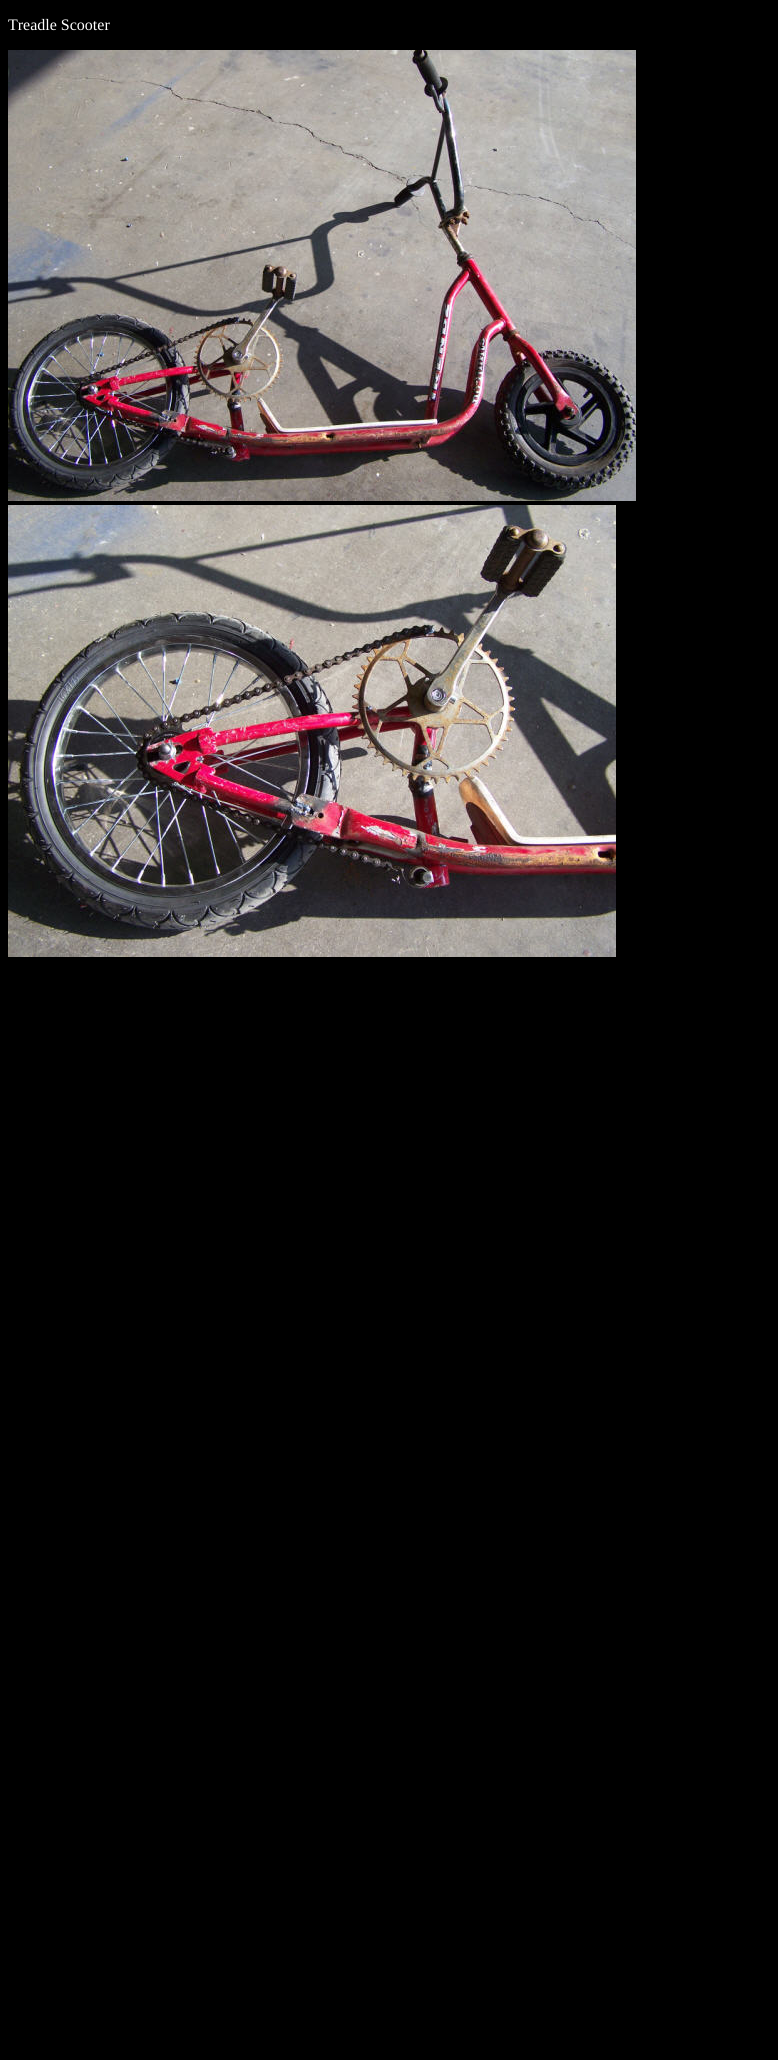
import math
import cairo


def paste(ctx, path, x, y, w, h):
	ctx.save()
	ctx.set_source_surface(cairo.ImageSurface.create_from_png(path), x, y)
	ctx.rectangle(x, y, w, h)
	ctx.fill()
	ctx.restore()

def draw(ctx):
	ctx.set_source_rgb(0, 0, 0)
	ctx.paint()
	ctx.select_font_face('Liberation Serif')
	ctx.set_font_size(16)
	ctx.set_source_rgb(1, 1, 1)
	ctx.move_to(8, 30)
	ctx.show_text('Treadle Scooter')
	paste(ctx, 'media/1.png', 8, 50, 628, 451)
	paste(ctx, 'media/2.png', 8, 505, 608, 452)


surface = cairo.ImageSurface(cairo.FORMAT_RGB24, 778, 2060)
ctx = cairo.Context(surface)
options = cairo.FontOptions()
options.set_hint_metrics(cairo.HINT_METRICS_OFF)
options.set_hint_style(cairo.HINT_STYLE_NONE)
ctx.set_font_options(options)
ctx.set_miter_limit(4)
draw(ctx)
surface.write_to_png('image.png')
